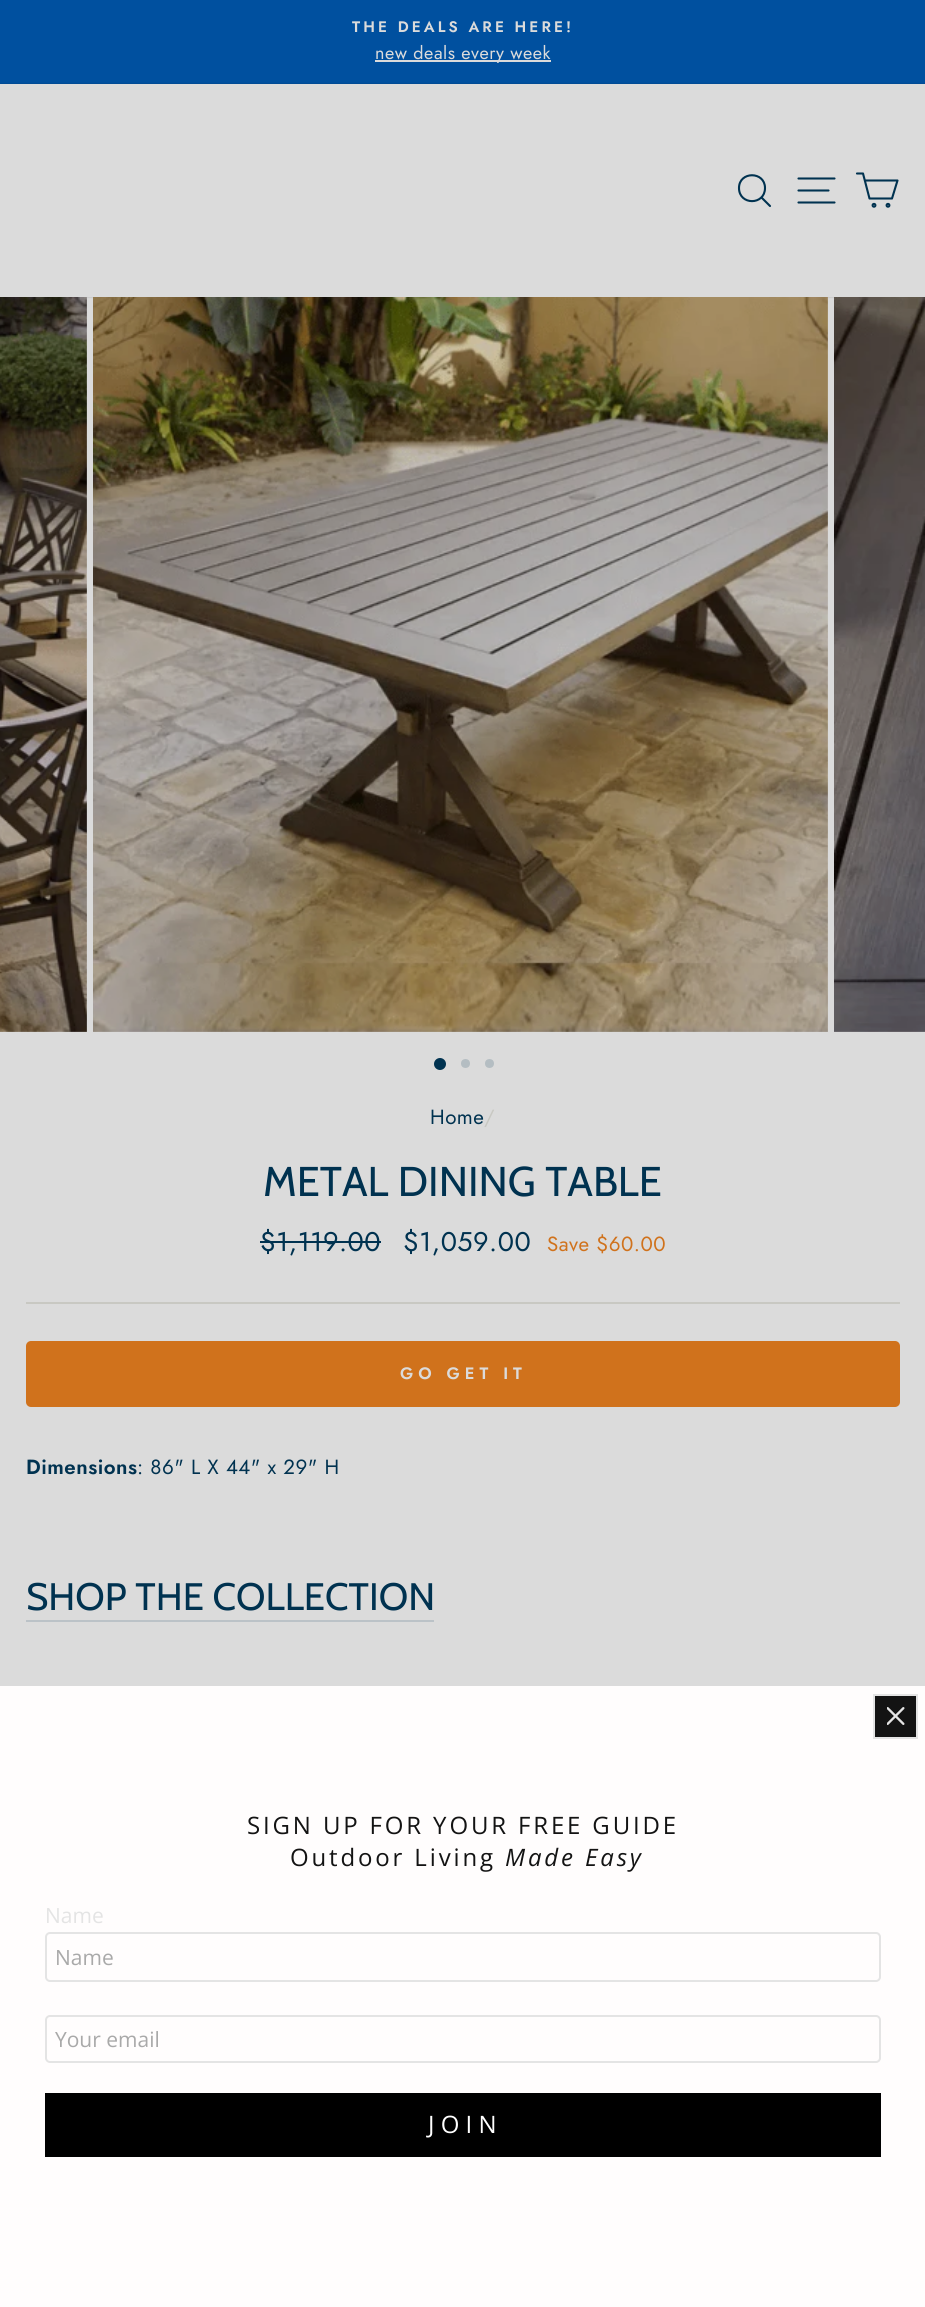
import math
import cairo


def write_spaced(ctx, x, y, s, letter, word):
	ctx.move_to(x, y)
	for ch in s:
		ctx.show_text(ch)
		ctx.rel_move_to(letter + word * (ch == ' '), 0)

def round_path(ctx, x, y, w, h, r):
	ctx.new_sub_path()
	for i, (u, v) in enumerate([(x + w - r, y + h - r), (x + r, y + h - r), (x + r, y + r), (x + w - r, y + r)]):
		ctx.arc(u, v, r, i * math.pi / 2, (i + 1) * math.pi / 2)
	ctx.close_path()

def blur_box(ctx, x, y, w, h, r, blur, alpha):
	ctx.push_group_with_content(cairo.CONTENT_ALPHA)
	ctx.set_operator(cairo.OPERATOR_SOURCE)
	for i in range(15, -16, -2):
		e = blur * i / 6
		if min(w, h) + 2 * e > 0:
			ctx.set_source_rgba(0, 0, 0, alpha * math.erfc((i - 1) / 8.5) / 2)
			round_path(ctx, x - e, y - e, w + 2 * e, h + 2 * e, max(0, min(r + e + blur * .6, min(w, h) / 2 + e)))
			ctx.fill()
	ctx.mask(ctx.pop_group())

def paste(ctx, path, x, y, w, h):
	ctx.save()
	ctx.set_source_surface(cairo.ImageSurface.create_from_png(path), x, y)
	ctx.rectangle(x, y, w, h)
	ctx.fill()
	ctx.restore()

def draw(ctx):
	ctx.set_source_rgb(0.859, 0.859, 0.859)
	ctx.paint()
	ctx.set_source_rgb(0, 0.314, 0.624)
	ctx.rectangle(0, 0, 925, 84)
	ctx.fill()
	ctx.select_font_face('Jost SemiBold')
	ctx.set_font_size(15.25)
	ctx.set_source_rgb(0.859, 0.859, 0.859)
	write_spaced(ctx, 352, 32, 'THE DEALS ARE HERE!', 3.1, 0)
	ctx.rectangle(375, 60, 176, 2)
	ctx.fill()
	ctx.select_font_face('Jost')
	ctx.set_font_size(18)
	write_spaced(ctx, 375, 59, 'new deals every week', 0.5, 0)
	ctx.save()
	ctx.set_fill_rule(cairo.FILL_RULE_EVEN_ODD)
	ctx.new_path()
	ctx.move_to(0, 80)
	ctx.line_to(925, 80)
	ctx.line_to(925, 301)
	ctx.line_to(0, 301)
	ctx.close_path()
	ctx.move_to(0, 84)
	ctx.line_to(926, 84)
	ctx.line_to(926, 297)
	ctx.line_to(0, 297)
	ctx.close_path()
	ctx.clip()
	ctx.set_source_rgb(0, 0, 0)
	blur_box(ctx, 0, 84, 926, 213, 0, 1, 0.2)
	ctx.restore()
	ctx.new_path()
	ctx.move_to(765, 188)
	ctx.curve_to(765, 205.5, 739, 205.5, 739, 188)
	ctx.curve_to(739, 171, 765, 171, 765, 188)
	ctx.close_path()
	ctx.move_to(770, 206)
	ctx.line_to(761.5, 197.5)
	ctx.set_source_rgb(0, 0.196, 0.314)
	ctx.set_line_width(2.1)
	ctx.set_line_cap(cairo.LINE_CAP_ROUND)
	ctx.set_line_join(cairo.LINE_JOIN_ROUND)
	ctx.stroke()
	ctx.new_path()
	ctx.move_to(798.5, 178.5)
	ctx.line_to(834.5, 178.5)
	ctx.move_to(798.5, 190.5)
	ctx.line_to(828.5, 190.5)
	ctx.move_to(798.5, 202.5)
	ctx.line_to(834.5, 202.5)
	ctx.stroke()
	ctx.new_path()
	ctx.move_to(865, 180.5)
	ctx.line_to(897.5, 180.5)
	ctx.line_to(892, 198.5)
	ctx.line_to(869.5, 198.5)
	ctx.line_to(863, 173.5)
	ctx.line_to(857, 173.5)
	ctx.stroke()
	ctx.arc(874, 205.3, 1.4, 0, 2 * math.pi)
	ctx.set_line_cap(cairo.LINE_CAP_BUTT)
	ctx.set_line_join(cairo.LINE_JOIN_MITER)
	ctx.stroke()
	ctx.arc(888, 205.3, 1.4, 0, 2 * math.pi)
	ctx.stroke()
	paste(ctx, 'media/1.png', 0, 297, 87, 735)
	paste(ctx, 'media/2.png', 93, 297, 735, 735)
	paste(ctx, 'media/3.png', 834, 297, 91, 735)
	ctx.arc(440, 1064, 6, 0, 2 * math.pi)
	ctx.fill()
	ctx.set_source_rgb(0.706, 0.741, 0.761)
	ctx.arc(465.5, 1063.5, 4.5, 0, 2 * math.pi)
	ctx.fill()
	ctx.arc(489.5, 1063.5, 4.5, 0, 2 * math.pi)
	ctx.fill()
	ctx.set_font_size(20.5)
	ctx.set_source_rgb(0, 0.196, 0.314)
	write_spaced(ctx, 430, 1124, 'Home', 0.5, 0)
	ctx.set_source_rgb(0.784, 0.784, 0.761)
	write_spaced(ctx, 484, 1124, '/', 0.5, 0)
	ctx.select_font_face('Cabin')
	ctx.set_font_size(41.6)
	ctx.set_source_rgb(0, 0.196, 0.314)
	ctx.move_to(263, 1196)
	ctx.show_text('METAL DINING TABLE')
	ctx.select_font_face('Jost')
	ctx.set_font_size(27)
	write_spaced(ctx, 260, 1251, '$1,119.00', 0.5, 0)
	ctx.rectangle(260, 1241, 121, 2)
	ctx.fill()
	write_spaced(ctx, 403, 1251, '$1,059.00', 0.5, 0)
	ctx.set_font_size(20.5)
	ctx.set_source_rgb(0.816, 0.447, 0.11)
	write_spaced(ctx, 547, 1251, 'Save $60.00', 0.5, 0)
	ctx.set_source_rgb(0.784, 0.784, 0.761)
	ctx.rectangle(26, 1302, 874, 2)
	ctx.fill()
	ctx.set_source_rgb(0.816, 0.447, 0.11)
	round_path(ctx, 26, 1341, 874, 66, 5)
	ctx.fill()
	ctx.select_font_face('Jost SemiBold')
	ctx.set_font_size(16.5)
	ctx.set_source_rgb(0.859, 0.859, 0.859)
	write_spaced(ctx, 400, 1379, 'GO GET IT', 5, 0)
	ctx.set_font_size(20.5)
	ctx.set_source_rgb(0, 0.196, 0.314)
	write_spaced(ctx, 26, 1474, 'Dimensions', 0.5, 0)
	ctx.select_font_face('Jost')
	write_spaced(ctx, 137, 1474, ': 86" L X 44" x 29" H', 0.5, 0)
	ctx.set_source_rgb(0.733, 0.761, 0.78)
	ctx.rectangle(26, 1620, 408, 2)
	ctx.fill()
	ctx.select_font_face('Cabin')
	ctx.set_font_size(38.25)
	ctx.set_source_rgb(0, 0.196, 0.314)
	ctx.move_to(26, 1610)
	ctx.show_text('SHOP THE COLLECTION')
	ctx.set_source_rgb(1, 0.992, 0.992)
	ctx.rectangle(0, 1686, 925, 621)
	ctx.fill()
	ctx.set_source_rgb(0.075, 0.075, 0.075)
	ctx.rectangle(874, 1695, 43, 43)
	ctx.fill_preserve()
	ctx.set_source_rgb(0.894, 0.894, 0.894)
	ctx.set_line_width(2)
	ctx.stroke()
	paste(ctx, 'media/4.png', 887, 1707, 18, 18)
	ctx.select_font_face('Open Sans')
	ctx.set_font_size(24)
	ctx.set_source_rgb(0.075, 0.075, 0.075)
	write_spaced(ctx, 247, 1834, 'SIGN UP FOR YOUR FREE GUIDE', 2.85, 0)
	write_spaced(ctx, 290, 1866, 'Outdoor Living', 2.85, 0)
	ctx.select_font_face('Open Sans', cairo.FONT_SLANT_ITALIC)
	write_spaced(ctx, 505, 1866, 'Made Easy', 2.85, 0)
	ctx.select_font_face('Open Sans')
	ctx.set_font_size(21)
	ctx.set_source_rgb(0.894, 0.894, 0.894)
	ctx.move_to(45, 1923)
	ctx.show_text('Name')
	round_path(ctx, 46, 1933, 834, 48, 4)
	ctx.stroke()
	ctx.set_source_rgb(0.663, 0.663, 0.663)
	ctx.move_to(55, 1965)
	ctx.show_text('Name')
	round_path(ctx, 46, 2016, 834, 46, 4)
	ctx.set_source_rgb(0.894, 0.894, 0.894)
	ctx.stroke()
	ctx.set_source_rgb(0.663, 0.663, 0.663)
	ctx.move_to(55, 2047)
	ctx.show_text('Your email')
	ctx.set_source_rgb(0, 0, 0)
	ctx.rectangle(45, 2093, 836, 64)
	ctx.fill()
	ctx.set_font_size(24)
	ctx.set_source_rgb(1, 1, 1)
	ctx.move_to(428, 2133)
	ctx.show_text('J O I N')


surface = cairo.ImageSurface(cairo.FORMAT_RGB24, 925, 2307)
ctx = cairo.Context(surface)
options = cairo.FontOptions()
options.set_hint_metrics(cairo.HINT_METRICS_OFF)
options.set_hint_style(cairo.HINT_STYLE_NONE)
ctx.set_font_options(options)
ctx.set_miter_limit(4)
draw(ctx)
surface.write_to_png('image.png')
